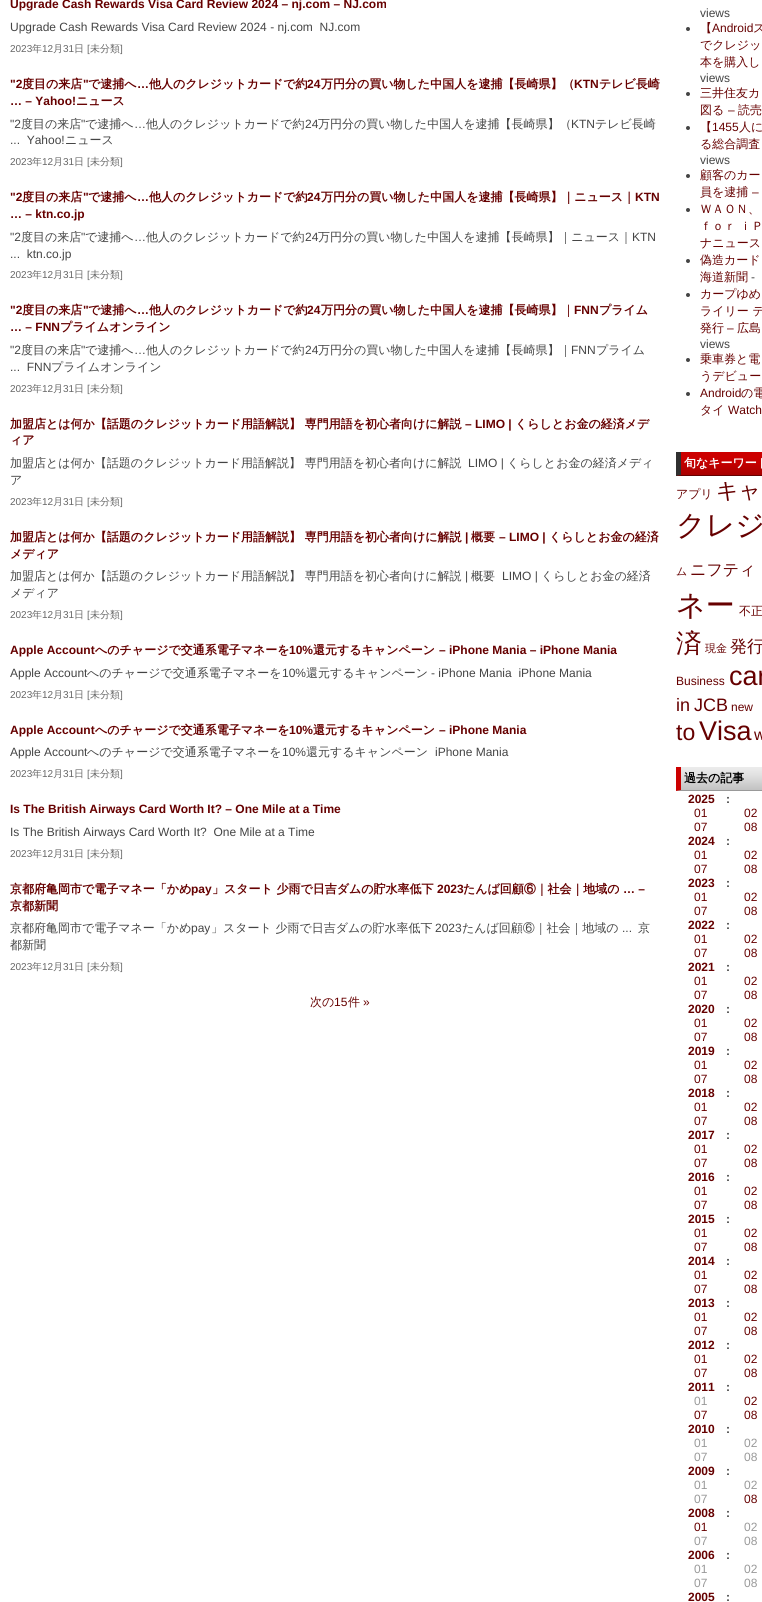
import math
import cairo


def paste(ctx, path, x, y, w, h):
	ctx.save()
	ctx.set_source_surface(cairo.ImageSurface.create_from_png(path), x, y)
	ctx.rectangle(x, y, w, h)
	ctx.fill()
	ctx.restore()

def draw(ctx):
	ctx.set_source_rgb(1, 1, 1)
	ctx.paint()
	ctx.select_font_face('Liberation Sans', cairo.FONT_SLANT_NORMAL, cairo.FONT_WEIGHT_BOLD)
	ctx.set_font_size(12)
	ctx.set_source_rgb(0.4, 0, 0)
	ctx.move_to(10, 8)
	ctx.show_text('Upgrade Cash Rewards Visa Card Review 2024 – nj.com – NJ.com')
	ctx.select_font_face('Liberation Sans')
	ctx.set_source_rgb(0.267, 0.267, 0.267)
	ctx.move_to(10, 31)
	ctx.show_text('Upgrade Cash Rewards Visa Card Review 2024 - nj.com  NJ.com')
	ctx.set_font_size(10)
	ctx.set_source_rgb(0.4, 0.4, 0.4)
	ctx.move_to(10, 52)
	ctx.show_text('2023')
	ctx.select_font_face('WenQuanYi Zen Hei Medium')
	ctx.move_to(32, 52)
	ctx.show_text('年')
	ctx.select_font_face('Liberation Sans')
	ctx.move_to(42, 52)
	ctx.show_text('12')
	ctx.select_font_face('WenQuanYi Zen Hei Medium')
	ctx.move_to(53, 52)
	ctx.show_text('月')
	ctx.select_font_face('Liberation Sans')
	ctx.move_to(63, 52)
	ctx.show_text('31')
	ctx.select_font_face('WenQuanYi Zen Hei Medium')
	ctx.move_to(74, 52)
	ctx.show_text('日')
	ctx.select_font_face('Liberation Sans')
	ctx.move_to(87, 52)
	ctx.show_text('[')
	ctx.select_font_face('WenQuanYi Zen Hei Medium')
	ctx.move_to(90, 52)
	ctx.show_text('未分類')
	ctx.select_font_face('Liberation Sans')
	ctx.move_to(120, 52)
	ctx.show_text(']')
	ctx.select_font_face('Liberation Sans', cairo.FONT_SLANT_NORMAL, cairo.FONT_WEIGHT_BOLD)
	ctx.set_font_size(12)
	ctx.set_source_rgb(0.4, 0, 0)
	ctx.move_to(10, 88)
	ctx.show_text('"2')
	ctx.select_font_face('WenQuanYi Zen Hei', cairo.FONT_SLANT_NORMAL, cairo.FONT_WEIGHT_BOLD)
	ctx.move_to(22, 88)
	ctx.show_text('度目の来店')
	ctx.select_font_face('Liberation Sans', cairo.FONT_SLANT_NORMAL, cairo.FONT_WEIGHT_BOLD)
	ctx.move_to(83, 88)
	ctx.show_text('"')
	ctx.select_font_face('WenQuanYi Zen Hei', cairo.FONT_SLANT_NORMAL, cairo.FONT_WEIGHT_BOLD)
	ctx.move_to(88, 88)
	ctx.show_text('で逮捕へ')
	ctx.select_font_face('Liberation Sans', cairo.FONT_SLANT_NORMAL, cairo.FONT_WEIGHT_BOLD)
	ctx.move_to(137, 88)
	ctx.show_text('…')
	ctx.select_font_face('WenQuanYi Zen Hei', cairo.FONT_SLANT_NORMAL, cairo.FONT_WEIGHT_BOLD)
	ctx.move_to(149, 88)
	ctx.show_text('他人のクレジットカードで約')
	ctx.select_font_face('Liberation Sans', cairo.FONT_SLANT_NORMAL, cairo.FONT_WEIGHT_BOLD)
	ctx.move_to(307, 88)
	ctx.show_text('24')
	ctx.select_font_face('WenQuanYi Zen Hei', cairo.FONT_SLANT_NORMAL, cairo.FONT_WEIGHT_BOLD)
	ctx.move_to(321, 88)
	ctx.show_text('万円分の買い物した中国人を逮捕【長崎県】（')
	ctx.select_font_face('Liberation Sans', cairo.FONT_SLANT_NORMAL, cairo.FONT_WEIGHT_BOLD)
	ctx.move_to(574, 88)
	ctx.show_text('KTN')
	ctx.select_font_face('WenQuanYi Zen Hei', cairo.FONT_SLANT_NORMAL, cairo.FONT_WEIGHT_BOLD)
	ctx.move_to(599, 88)
	ctx.show_text('テレビ長崎')
	ctx.select_font_face('Liberation Sans', cairo.FONT_SLANT_NORMAL, cairo.FONT_WEIGHT_BOLD)
	ctx.move_to(10, 105)
	ctx.show_text('… – Yahoo!')
	ctx.select_font_face('WenQuanYi Zen Hei', cairo.FONT_SLANT_NORMAL, cairo.FONT_WEIGHT_BOLD)
	ctx.move_to(76, 105)
	ctx.show_text('ニュース')
	ctx.select_font_face('Liberation Sans')
	ctx.set_source_rgb(0.267, 0.267, 0.267)
	ctx.move_to(10, 128)
	ctx.show_text('"2')
	ctx.select_font_face('WenQuanYi Zen Hei Medium')
	ctx.move_to(21, 128)
	ctx.show_text('度目の来店')
	ctx.select_font_face('Liberation Sans')
	ctx.move_to(81, 128)
	ctx.show_text('"')
	ctx.select_font_face('WenQuanYi Zen Hei Medium')
	ctx.move_to(85, 128)
	ctx.show_text('で逮捕へ')
	ctx.select_font_face('Liberation Sans')
	ctx.move_to(134, 128)
	ctx.show_text('…')
	ctx.select_font_face('WenQuanYi Zen Hei Medium')
	ctx.move_to(146, 128)
	ctx.show_text('他人のクレジットカードで約')
	ctx.select_font_face('Liberation Sans')
	ctx.move_to(305, 128)
	ctx.show_text('24')
	ctx.select_font_face('WenQuanYi Zen Hei Medium')
	ctx.move_to(318, 128)
	ctx.show_text('万円分の買い物した中国人を逮捕【長崎県】（')
	ctx.select_font_face('Liberation Sans')
	ctx.move_to(571, 128)
	ctx.show_text('KTN')
	ctx.select_font_face('WenQuanYi Zen Hei Medium')
	ctx.move_to(595, 128)
	ctx.show_text('テレビ長崎')
	ctx.select_font_face('Liberation Sans')
	ctx.move_to(10, 144)
	ctx.show_text('...  Yahoo!')
	ctx.select_font_face('WenQuanYi Zen Hei Medium')
	ctx.move_to(65, 144)
	ctx.show_text('ニュース')
	ctx.select_font_face('Liberation Sans')
	ctx.set_font_size(10)
	ctx.set_source_rgb(0.4, 0.4, 0.4)
	ctx.move_to(10, 165)
	ctx.show_text('2023')
	ctx.select_font_face('WenQuanYi Zen Hei Medium')
	ctx.move_to(32, 165)
	ctx.show_text('年')
	ctx.select_font_face('Liberation Sans')
	ctx.move_to(42, 165)
	ctx.show_text('12')
	ctx.select_font_face('WenQuanYi Zen Hei Medium')
	ctx.move_to(53, 165)
	ctx.show_text('月')
	ctx.select_font_face('Liberation Sans')
	ctx.move_to(63, 165)
	ctx.show_text('31')
	ctx.select_font_face('WenQuanYi Zen Hei Medium')
	ctx.move_to(74, 165)
	ctx.show_text('日')
	ctx.select_font_face('Liberation Sans')
	ctx.move_to(87, 165)
	ctx.show_text('[')
	ctx.select_font_face('WenQuanYi Zen Hei Medium')
	ctx.move_to(90, 165)
	ctx.show_text('未分類')
	ctx.select_font_face('Liberation Sans')
	ctx.move_to(120, 165)
	ctx.show_text(']')
	ctx.select_font_face('Liberation Sans', cairo.FONT_SLANT_NORMAL, cairo.FONT_WEIGHT_BOLD)
	ctx.set_font_size(12)
	ctx.set_source_rgb(0.4, 0, 0)
	ctx.move_to(10, 201)
	ctx.show_text('"2')
	ctx.select_font_face('WenQuanYi Zen Hei', cairo.FONT_SLANT_NORMAL, cairo.FONT_WEIGHT_BOLD)
	ctx.move_to(22, 201)
	ctx.show_text('度目の来店')
	ctx.select_font_face('Liberation Sans', cairo.FONT_SLANT_NORMAL, cairo.FONT_WEIGHT_BOLD)
	ctx.move_to(83, 201)
	ctx.show_text('"')
	ctx.select_font_face('WenQuanYi Zen Hei', cairo.FONT_SLANT_NORMAL, cairo.FONT_WEIGHT_BOLD)
	ctx.move_to(88, 201)
	ctx.show_text('で逮捕へ')
	ctx.select_font_face('Liberation Sans', cairo.FONT_SLANT_NORMAL, cairo.FONT_WEIGHT_BOLD)
	ctx.move_to(137, 201)
	ctx.show_text('…')
	ctx.select_font_face('WenQuanYi Zen Hei', cairo.FONT_SLANT_NORMAL, cairo.FONT_WEIGHT_BOLD)
	ctx.move_to(149, 201)
	ctx.show_text('他人のクレジットカードで約')
	ctx.select_font_face('Liberation Sans', cairo.FONT_SLANT_NORMAL, cairo.FONT_WEIGHT_BOLD)
	ctx.move_to(307, 201)
	ctx.show_text('24')
	ctx.select_font_face('WenQuanYi Zen Hei', cairo.FONT_SLANT_NORMAL, cairo.FONT_WEIGHT_BOLD)
	ctx.move_to(321, 201)
	ctx.show_text('万円分の買い物した中国人を逮捕【長崎県】｜ニュース｜')
	ctx.select_font_face('Liberation Sans', cairo.FONT_SLANT_NORMAL, cairo.FONT_WEIGHT_BOLD)
	ctx.move_to(635, 201)
	ctx.show_text('KTN')
	ctx.move_to(10, 218)
	ctx.show_text('… – ktn.co.jp')
	ctx.select_font_face('Liberation Sans')
	ctx.set_source_rgb(0.267, 0.267, 0.267)
	ctx.move_to(10, 241)
	ctx.show_text('"2')
	ctx.select_font_face('WenQuanYi Zen Hei Medium')
	ctx.move_to(21, 241)
	ctx.show_text('度目の来店')
	ctx.select_font_face('Liberation Sans')
	ctx.move_to(81, 241)
	ctx.show_text('"')
	ctx.select_font_face('WenQuanYi Zen Hei Medium')
	ctx.move_to(85, 241)
	ctx.show_text('で逮捕へ')
	ctx.select_font_face('Liberation Sans')
	ctx.move_to(134, 241)
	ctx.show_text('…')
	ctx.select_font_face('WenQuanYi Zen Hei Medium')
	ctx.move_to(146, 241)
	ctx.show_text('他人のクレジットカードで約')
	ctx.select_font_face('Liberation Sans')
	ctx.move_to(305, 241)
	ctx.show_text('24')
	ctx.select_font_face('WenQuanYi Zen Hei Medium')
	ctx.move_to(318, 241)
	ctx.show_text('万円分の買い物した中国人を逮捕【長崎県】｜ニュース｜')
	ctx.select_font_face('Liberation Sans')
	ctx.move_to(632, 241)
	ctx.show_text('KTN')
	ctx.move_to(10, 258)
	ctx.show_text('...  ktn.co.jp')
	ctx.set_font_size(10)
	ctx.set_source_rgb(0.4, 0.4, 0.4)
	ctx.move_to(10, 278)
	ctx.show_text('2023')
	ctx.select_font_face('WenQuanYi Zen Hei Medium')
	ctx.move_to(32, 278)
	ctx.show_text('年')
	ctx.select_font_face('Liberation Sans')
	ctx.move_to(42, 278)
	ctx.show_text('12')
	ctx.select_font_face('WenQuanYi Zen Hei Medium')
	ctx.move_to(53, 278)
	ctx.show_text('月')
	ctx.select_font_face('Liberation Sans')
	ctx.move_to(63, 278)
	ctx.show_text('31')
	ctx.select_font_face('WenQuanYi Zen Hei Medium')
	ctx.move_to(74, 278)
	ctx.show_text('日')
	ctx.select_font_face('Liberation Sans')
	ctx.move_to(87, 278)
	ctx.show_text('[')
	ctx.select_font_face('WenQuanYi Zen Hei Medium')
	ctx.move_to(90, 278)
	ctx.show_text('未分類')
	ctx.select_font_face('Liberation Sans')
	ctx.move_to(120, 278)
	ctx.show_text(']')
	ctx.select_font_face('Liberation Sans', cairo.FONT_SLANT_NORMAL, cairo.FONT_WEIGHT_BOLD)
	ctx.set_font_size(12)
	ctx.set_source_rgb(0.4, 0, 0)
	ctx.move_to(10, 314)
	ctx.show_text('"2')
	ctx.select_font_face('WenQuanYi Zen Hei', cairo.FONT_SLANT_NORMAL, cairo.FONT_WEIGHT_BOLD)
	ctx.move_to(22, 314)
	ctx.show_text('度目の来店')
	ctx.select_font_face('Liberation Sans', cairo.FONT_SLANT_NORMAL, cairo.FONT_WEIGHT_BOLD)
	ctx.move_to(83, 314)
	ctx.show_text('"')
	ctx.select_font_face('WenQuanYi Zen Hei', cairo.FONT_SLANT_NORMAL, cairo.FONT_WEIGHT_BOLD)
	ctx.move_to(88, 314)
	ctx.show_text('で逮捕へ')
	ctx.select_font_face('Liberation Sans', cairo.FONT_SLANT_NORMAL, cairo.FONT_WEIGHT_BOLD)
	ctx.move_to(137, 314)
	ctx.show_text('…')
	ctx.select_font_face('WenQuanYi Zen Hei', cairo.FONT_SLANT_NORMAL, cairo.FONT_WEIGHT_BOLD)
	ctx.move_to(149, 314)
	ctx.show_text('他人のクレジットカードで約')
	ctx.select_font_face('Liberation Sans', cairo.FONT_SLANT_NORMAL, cairo.FONT_WEIGHT_BOLD)
	ctx.move_to(307, 314)
	ctx.show_text('24')
	ctx.select_font_face('WenQuanYi Zen Hei', cairo.FONT_SLANT_NORMAL, cairo.FONT_WEIGHT_BOLD)
	ctx.move_to(321, 314)
	ctx.show_text('万円分の買い物した中国人を逮捕【長崎県】｜')
	ctx.select_font_face('Liberation Sans', cairo.FONT_SLANT_NORMAL, cairo.FONT_WEIGHT_BOLD)
	ctx.move_to(574, 314)
	ctx.show_text('FNN')
	ctx.select_font_face('WenQuanYi Zen Hei', cairo.FONT_SLANT_NORMAL, cairo.FONT_WEIGHT_BOLD)
	ctx.move_to(599, 314)
	ctx.show_text('プライム')
	ctx.select_font_face('Liberation Sans', cairo.FONT_SLANT_NORMAL, cairo.FONT_WEIGHT_BOLD)
	ctx.move_to(10, 331)
	ctx.show_text('… – FNN')
	ctx.select_font_face('WenQuanYi Zen Hei', cairo.FONT_SLANT_NORMAL, cairo.FONT_WEIGHT_BOLD)
	ctx.move_to(60, 331)
	ctx.show_text('プライムオンライン')
	ctx.select_font_face('Liberation Sans')
	ctx.set_source_rgb(0.267, 0.267, 0.267)
	ctx.move_to(10, 354)
	ctx.show_text('"2')
	ctx.select_font_face('WenQuanYi Zen Hei Medium')
	ctx.move_to(21, 354)
	ctx.show_text('度目の来店')
	ctx.select_font_face('Liberation Sans')
	ctx.move_to(81, 354)
	ctx.show_text('"')
	ctx.select_font_face('WenQuanYi Zen Hei Medium')
	ctx.move_to(85, 354)
	ctx.show_text('で逮捕へ')
	ctx.select_font_face('Liberation Sans')
	ctx.move_to(134, 354)
	ctx.show_text('…')
	ctx.select_font_face('WenQuanYi Zen Hei Medium')
	ctx.move_to(146, 354)
	ctx.show_text('他人のクレジットカードで約')
	ctx.select_font_face('Liberation Sans')
	ctx.move_to(305, 354)
	ctx.show_text('24')
	ctx.select_font_face('WenQuanYi Zen Hei Medium')
	ctx.move_to(318, 354)
	ctx.show_text('万円分の買い物した中国人を逮捕【長崎県】｜')
	ctx.select_font_face('Liberation Sans')
	ctx.move_to(571, 354)
	ctx.show_text('FNN')
	ctx.select_font_face('WenQuanYi Zen Hei Medium')
	ctx.move_to(596, 354)
	ctx.show_text('プライム')
	ctx.select_font_face('Liberation Sans')
	ctx.move_to(10, 371)
	ctx.show_text('...  FNN')
	ctx.select_font_face('WenQuanYi Zen Hei Medium')
	ctx.move_to(51, 371)
	ctx.show_text('プライムオンライン')
	ctx.select_font_face('Liberation Sans')
	ctx.set_font_size(10)
	ctx.set_source_rgb(0.4, 0.4, 0.4)
	ctx.move_to(10, 392)
	ctx.show_text('2023')
	ctx.select_font_face('WenQuanYi Zen Hei Medium')
	ctx.move_to(32, 392)
	ctx.show_text('年')
	ctx.select_font_face('Liberation Sans')
	ctx.move_to(42, 392)
	ctx.show_text('12')
	ctx.select_font_face('WenQuanYi Zen Hei Medium')
	ctx.move_to(53, 392)
	ctx.show_text('月')
	ctx.select_font_face('Liberation Sans')
	ctx.move_to(63, 392)
	ctx.show_text('31')
	ctx.select_font_face('WenQuanYi Zen Hei Medium')
	ctx.move_to(74, 392)
	ctx.show_text('日')
	ctx.select_font_face('Liberation Sans')
	ctx.move_to(87, 392)
	ctx.show_text('[')
	ctx.select_font_face('WenQuanYi Zen Hei Medium')
	ctx.move_to(90, 392)
	ctx.show_text('未分類')
	ctx.select_font_face('Liberation Sans')
	ctx.move_to(120, 392)
	ctx.show_text(']')
	ctx.select_font_face('WenQuanYi Zen Hei', cairo.FONT_SLANT_NORMAL, cairo.FONT_WEIGHT_BOLD)
	ctx.set_font_size(12)
	ctx.set_source_rgb(0.4, 0, 0)
	ctx.move_to(10, 428)
	ctx.show_text('加盟店とは何か【話題のクレジットカード用語解説】 専門用語を初心者向けに解説')
	ctx.select_font_face('Liberation Sans', cairo.FONT_SLANT_NORMAL, cairo.FONT_WEIGHT_BOLD)
	ctx.move_to(465, 428)
	ctx.show_text('– LIMO |')
	ctx.select_font_face('WenQuanYi Zen Hei', cairo.FONT_SLANT_NORMAL, cairo.FONT_WEIGHT_BOLD)
	ctx.move_to(515, 428)
	ctx.show_text('くらしとお金の経済メデ')
	ctx.move_to(10, 444)
	ctx.show_text('ィア')
	ctx.select_font_face('WenQuanYi Zen Hei Medium')
	ctx.set_source_rgb(0.267, 0.267, 0.267)
	ctx.move_to(10, 467)
	ctx.show_text('加盟店とは何か【話題のクレジットカード用語解説】 専門用語を初心者向けに解説')
	ctx.select_font_face('Liberation Sans')
	ctx.move_to(468, 467)
	ctx.show_text('LIMO |')
	ctx.select_font_face('WenQuanYi Zen Hei Medium')
	ctx.move_to(507, 467)
	ctx.show_text('くらしとお金の経済メディ')
	ctx.move_to(10, 484)
	ctx.show_text('ア')
	ctx.select_font_face('Liberation Sans')
	ctx.set_font_size(10)
	ctx.set_source_rgb(0.4, 0.4, 0.4)
	ctx.move_to(10, 505)
	ctx.show_text('2023')
	ctx.select_font_face('WenQuanYi Zen Hei Medium')
	ctx.move_to(32, 505)
	ctx.show_text('年')
	ctx.select_font_face('Liberation Sans')
	ctx.move_to(42, 505)
	ctx.show_text('12')
	ctx.select_font_face('WenQuanYi Zen Hei Medium')
	ctx.move_to(53, 505)
	ctx.show_text('月')
	ctx.select_font_face('Liberation Sans')
	ctx.move_to(63, 505)
	ctx.show_text('31')
	ctx.select_font_face('WenQuanYi Zen Hei Medium')
	ctx.move_to(74, 505)
	ctx.show_text('日')
	ctx.select_font_face('Liberation Sans')
	ctx.move_to(87, 505)
	ctx.show_text('[')
	ctx.select_font_face('WenQuanYi Zen Hei Medium')
	ctx.move_to(90, 505)
	ctx.show_text('未分類')
	ctx.select_font_face('Liberation Sans')
	ctx.move_to(120, 505)
	ctx.show_text(']')
	ctx.select_font_face('WenQuanYi Zen Hei', cairo.FONT_SLANT_NORMAL, cairo.FONT_WEIGHT_BOLD)
	ctx.set_font_size(12)
	ctx.set_source_rgb(0.4, 0, 0)
	ctx.move_to(10, 541)
	ctx.show_text('加盟店とは何か【話題のクレジットカード用語解説】 専門用語を初心者向けに解説')
	ctx.select_font_face('Liberation Sans', cairo.FONT_SLANT_NORMAL, cairo.FONT_WEIGHT_BOLD)
	ctx.move_to(465, 541)
	ctx.show_text('|')
	ctx.select_font_face('WenQuanYi Zen Hei', cairo.FONT_SLANT_NORMAL, cairo.FONT_WEIGHT_BOLD)
	ctx.move_to(471, 541)
	ctx.show_text('概要')
	ctx.select_font_face('Liberation Sans', cairo.FONT_SLANT_NORMAL, cairo.FONT_WEIGHT_BOLD)
	ctx.move_to(499, 541)
	ctx.show_text('– LIMO |')
	ctx.select_font_face('WenQuanYi Zen Hei', cairo.FONT_SLANT_NORMAL, cairo.FONT_WEIGHT_BOLD)
	ctx.move_to(549, 541)
	ctx.show_text('くらしとお金の経済')
	ctx.move_to(10, 558)
	ctx.show_text('メディア')
	ctx.select_font_face('WenQuanYi Zen Hei Medium')
	ctx.set_source_rgb(0.267, 0.267, 0.267)
	ctx.move_to(10, 580)
	ctx.show_text('加盟店とは何か【話題のクレジットカード用語解説】 専門用語を初心者向けに解説')
	ctx.select_font_face('Liberation Sans')
	ctx.move_to(465, 580)
	ctx.show_text('|')
	ctx.select_font_face('WenQuanYi Zen Hei Medium')
	ctx.move_to(471, 580)
	ctx.show_text('概要')
	ctx.select_font_face('Liberation Sans')
	ctx.move_to(502, 580)
	ctx.show_text('LIMO |')
	ctx.select_font_face('WenQuanYi Zen Hei Medium')
	ctx.move_to(541, 580)
	ctx.show_text('くらしとお金の経済')
	ctx.move_to(10, 597)
	ctx.show_text('メディア')
	ctx.select_font_face('Liberation Sans')
	ctx.set_font_size(10)
	ctx.set_source_rgb(0.4, 0.4, 0.4)
	ctx.move_to(10, 618)
	ctx.show_text('2023')
	ctx.select_font_face('WenQuanYi Zen Hei Medium')
	ctx.move_to(32, 618)
	ctx.show_text('年')
	ctx.select_font_face('Liberation Sans')
	ctx.move_to(42, 618)
	ctx.show_text('12')
	ctx.select_font_face('WenQuanYi Zen Hei Medium')
	ctx.move_to(53, 618)
	ctx.show_text('月')
	ctx.select_font_face('Liberation Sans')
	ctx.move_to(63, 618)
	ctx.show_text('31')
	ctx.select_font_face('WenQuanYi Zen Hei Medium')
	ctx.move_to(74, 618)
	ctx.show_text('日')
	ctx.select_font_face('Liberation Sans')
	ctx.move_to(87, 618)
	ctx.show_text('[')
	ctx.select_font_face('WenQuanYi Zen Hei Medium')
	ctx.move_to(90, 618)
	ctx.show_text('未分類')
	ctx.select_font_face('Liberation Sans')
	ctx.move_to(120, 618)
	ctx.show_text(']')
	ctx.select_font_face('Liberation Sans', cairo.FONT_SLANT_NORMAL, cairo.FONT_WEIGHT_BOLD)
	ctx.set_font_size(12)
	ctx.set_source_rgb(0.4, 0, 0)
	ctx.move_to(10, 654)
	ctx.show_text('Apple Account')
	ctx.select_font_face('WenQuanYi Zen Hei', cairo.FONT_SLANT_NORMAL, cairo.FONT_WEIGHT_BOLD)
	ctx.move_to(95, 654)
	ctx.show_text('へのチャージで交通系電子マネーを')
	ctx.select_font_face('Liberation Sans', cairo.FONT_SLANT_NORMAL, cairo.FONT_WEIGHT_BOLD)
	ctx.move_to(289, 654)
	ctx.show_text('10%')
	ctx.select_font_face('WenQuanYi Zen Hei', cairo.FONT_SLANT_NORMAL, cairo.FONT_WEIGHT_BOLD)
	ctx.move_to(313, 654)
	ctx.show_text('還元するキャンペーン')
	ctx.select_font_face('Liberation Sans', cairo.FONT_SLANT_NORMAL, cairo.FONT_WEIGHT_BOLD)
	ctx.move_to(439, 654)
	ctx.show_text('– iPhone Mania – iPhone Mania')
	ctx.select_font_face('Liberation Sans')
	ctx.set_source_rgb(0.267, 0.267, 0.267)
	ctx.move_to(10, 677)
	ctx.show_text('Apple Account')
	ctx.select_font_face('WenQuanYi Zen Hei Medium')
	ctx.move_to(87, 677)
	ctx.show_text('へのチャージで交通系電子マネーを')
	ctx.select_font_face('Liberation Sans')
	ctx.move_to(282, 677)
	ctx.show_text('10%')
	ctx.select_font_face('WenQuanYi Zen Hei Medium')
	ctx.move_to(306, 677)
	ctx.show_text('還元するキャンペーン')
	ctx.select_font_face('Liberation Sans')
	ctx.move_to(431, 677)
	ctx.show_text('- iPhone Mania  iPhone Mania')
	ctx.set_font_size(10)
	ctx.set_source_rgb(0.4, 0.4, 0.4)
	ctx.move_to(10, 698)
	ctx.show_text('2023')
	ctx.select_font_face('WenQuanYi Zen Hei Medium')
	ctx.move_to(32, 698)
	ctx.show_text('年')
	ctx.select_font_face('Liberation Sans')
	ctx.move_to(42, 698)
	ctx.show_text('12')
	ctx.select_font_face('WenQuanYi Zen Hei Medium')
	ctx.move_to(53, 698)
	ctx.show_text('月')
	ctx.select_font_face('Liberation Sans')
	ctx.move_to(63, 698)
	ctx.show_text('31')
	ctx.select_font_face('WenQuanYi Zen Hei Medium')
	ctx.move_to(74, 698)
	ctx.show_text('日')
	ctx.select_font_face('Liberation Sans')
	ctx.move_to(87, 698)
	ctx.show_text('[')
	ctx.select_font_face('WenQuanYi Zen Hei Medium')
	ctx.move_to(90, 698)
	ctx.show_text('未分類')
	ctx.select_font_face('Liberation Sans')
	ctx.move_to(120, 698)
	ctx.show_text(']')
	ctx.select_font_face('Liberation Sans', cairo.FONT_SLANT_NORMAL, cairo.FONT_WEIGHT_BOLD)
	ctx.set_font_size(12)
	ctx.set_source_rgb(0.4, 0, 0)
	ctx.move_to(10, 734)
	ctx.show_text('Apple Account')
	ctx.select_font_face('WenQuanYi Zen Hei', cairo.FONT_SLANT_NORMAL, cairo.FONT_WEIGHT_BOLD)
	ctx.move_to(95, 734)
	ctx.show_text('へのチャージで交通系電子マネーを')
	ctx.select_font_face('Liberation Sans', cairo.FONT_SLANT_NORMAL, cairo.FONT_WEIGHT_BOLD)
	ctx.move_to(289, 734)
	ctx.show_text('10%')
	ctx.select_font_face('WenQuanYi Zen Hei', cairo.FONT_SLANT_NORMAL, cairo.FONT_WEIGHT_BOLD)
	ctx.move_to(313, 734)
	ctx.show_text('還元するキャンペーン')
	ctx.select_font_face('Liberation Sans', cairo.FONT_SLANT_NORMAL, cairo.FONT_WEIGHT_BOLD)
	ctx.move_to(439, 734)
	ctx.show_text('– iPhone Mania')
	ctx.select_font_face('Liberation Sans')
	ctx.set_source_rgb(0.267, 0.267, 0.267)
	ctx.move_to(10, 756)
	ctx.show_text('Apple Account')
	ctx.select_font_face('WenQuanYi Zen Hei Medium')
	ctx.move_to(87, 756)
	ctx.show_text('へのチャージで交通系電子マネーを')
	ctx.select_font_face('Liberation Sans')
	ctx.move_to(282, 756)
	ctx.show_text('10%')
	ctx.select_font_face('WenQuanYi Zen Hei Medium')
	ctx.move_to(306, 756)
	ctx.show_text('還元するキャンペーン')
	ctx.select_font_face('Liberation Sans')
	ctx.move_to(435, 756)
	ctx.show_text('iPhone Mania')
	ctx.set_font_size(10)
	ctx.set_source_rgb(0.4, 0.4, 0.4)
	ctx.move_to(10, 777)
	ctx.show_text('2023')
	ctx.select_font_face('WenQuanYi Zen Hei Medium')
	ctx.move_to(32, 777)
	ctx.show_text('年')
	ctx.select_font_face('Liberation Sans')
	ctx.move_to(42, 777)
	ctx.show_text('12')
	ctx.select_font_face('WenQuanYi Zen Hei Medium')
	ctx.move_to(53, 777)
	ctx.show_text('月')
	ctx.select_font_face('Liberation Sans')
	ctx.move_to(63, 777)
	ctx.show_text('31')
	ctx.select_font_face('WenQuanYi Zen Hei Medium')
	ctx.move_to(74, 777)
	ctx.show_text('日')
	ctx.select_font_face('Liberation Sans')
	ctx.move_to(87, 777)
	ctx.show_text('[')
	ctx.select_font_face('WenQuanYi Zen Hei Medium')
	ctx.move_to(90, 777)
	ctx.show_text('未分類')
	ctx.select_font_face('Liberation Sans')
	ctx.move_to(120, 777)
	ctx.show_text(']')
	ctx.select_font_face('Liberation Sans', cairo.FONT_SLANT_NORMAL, cairo.FONT_WEIGHT_BOLD)
	ctx.set_font_size(12)
	ctx.set_source_rgb(0.4, 0, 0)
	ctx.move_to(10, 813)
	ctx.show_text('Is The British Airways Card Worth It? – One Mile at a Time')
	ctx.select_font_face('Liberation Sans')
	ctx.set_source_rgb(0.267, 0.267, 0.267)
	ctx.move_to(10, 836)
	ctx.show_text('Is The British Airways Card Worth It?  One Mile at a Time')
	ctx.set_font_size(10)
	ctx.set_source_rgb(0.4, 0.4, 0.4)
	ctx.move_to(10, 857)
	ctx.show_text('2023')
	ctx.select_font_face('WenQuanYi Zen Hei Medium')
	ctx.move_to(32, 857)
	ctx.show_text('年')
	ctx.select_font_face('Liberation Sans')
	ctx.move_to(42, 857)
	ctx.show_text('12')
	ctx.select_font_face('WenQuanYi Zen Hei Medium')
	ctx.move_to(53, 857)
	ctx.show_text('月')
	ctx.select_font_face('Liberation Sans')
	ctx.move_to(63, 857)
	ctx.show_text('31')
	ctx.select_font_face('WenQuanYi Zen Hei Medium')
	ctx.move_to(74, 857)
	ctx.show_text('日')
	ctx.select_font_face('Liberation Sans')
	ctx.move_to(87, 857)
	ctx.show_text('[')
	ctx.select_font_face('WenQuanYi Zen Hei Medium')
	ctx.move_to(90, 857)
	ctx.show_text('未分類')
	ctx.select_font_face('Liberation Sans')
	ctx.move_to(120, 857)
	ctx.show_text(']')
	ctx.select_font_face('WenQuanYi Zen Hei', cairo.FONT_SLANT_NORMAL, cairo.FONT_WEIGHT_BOLD)
	ctx.set_font_size(12)
	ctx.set_source_rgb(0.4, 0, 0)
	ctx.move_to(10, 893)
	ctx.show_text('京都府亀岡市で電子マネー「かめ')
	ctx.select_font_face('Liberation Sans', cairo.FONT_SLANT_NORMAL, cairo.FONT_WEIGHT_BOLD)
	ctx.move_to(191, 893)
	ctx.show_text('pay')
	ctx.select_font_face('WenQuanYi Zen Hei', cairo.FONT_SLANT_NORMAL, cairo.FONT_WEIGHT_BOLD)
	ctx.move_to(212, 893)
	ctx.show_text('」スタート 少雨で日吉ダムの貯水率低下')
	ctx.select_font_face('Liberation Sans', cairo.FONT_SLANT_NORMAL, cairo.FONT_WEIGHT_BOLD)
	ctx.move_to(437, 893)
	ctx.show_text('2023')
	ctx.select_font_face('WenQuanYi Zen Hei', cairo.FONT_SLANT_NORMAL, cairo.FONT_WEIGHT_BOLD)
	ctx.move_to(463, 893)
	ctx.show_text('たんば回顧⑥｜社会｜地域の')
	ctx.select_font_face('Liberation Sans', cairo.FONT_SLANT_NORMAL, cairo.FONT_WEIGHT_BOLD)
	ctx.move_to(623, 893)
	ctx.show_text('… –')
	ctx.select_font_face('WenQuanYi Zen Hei', cairo.FONT_SLANT_NORMAL, cairo.FONT_WEIGHT_BOLD)
	ctx.move_to(10, 910)
	ctx.show_text('京都新聞')
	ctx.select_font_face('WenQuanYi Zen Hei Medium')
	ctx.set_source_rgb(0.267, 0.267, 0.267)
	ctx.move_to(10, 932)
	ctx.show_text('京都府亀岡市で電子マネー「かめ')
	ctx.select_font_face('Liberation Sans')
	ctx.move_to(191, 932)
	ctx.show_text('pay')
	ctx.select_font_face('WenQuanYi Zen Hei Medium')
	ctx.move_to(211, 932)
	ctx.show_text('」スタート 少雨で日吉ダムの貯水率低下')
	ctx.select_font_face('Liberation Sans')
	ctx.move_to(435, 932)
	ctx.show_text('2023')
	ctx.select_font_face('WenQuanYi Zen Hei Medium')
	ctx.move_to(462, 932)
	ctx.show_text('たんば回顧⑥｜社会｜地域の')
	ctx.select_font_face('Liberation Sans')
	ctx.move_to(622, 932)
	ctx.show_text('...')
	ctx.select_font_face('WenQuanYi Zen Hei Medium')
	ctx.move_to(638, 932)
	ctx.show_text('京')
	ctx.move_to(10, 949)
	ctx.show_text('都新聞')
	ctx.select_font_face('Liberation Sans')
	ctx.set_font_size(10)
	ctx.set_source_rgb(0.4, 0.4, 0.4)
	ctx.move_to(10, 970)
	ctx.show_text('2023')
	ctx.select_font_face('WenQuanYi Zen Hei Medium')
	ctx.move_to(32, 970)
	ctx.show_text('年')
	ctx.select_font_face('Liberation Sans')
	ctx.move_to(42, 970)
	ctx.show_text('12')
	ctx.select_font_face('WenQuanYi Zen Hei Medium')
	ctx.move_to(53, 970)
	ctx.show_text('月')
	ctx.select_font_face('Liberation Sans')
	ctx.move_to(63, 970)
	ctx.show_text('31')
	ctx.select_font_face('WenQuanYi Zen Hei Medium')
	ctx.move_to(74, 970)
	ctx.show_text('日')
	ctx.select_font_face('Liberation Sans')
	ctx.move_to(87, 970)
	ctx.show_text('[')
	ctx.select_font_face('WenQuanYi Zen Hei Medium')
	ctx.move_to(90, 970)
	ctx.show_text('未分類')
	ctx.select_font_face('Liberation Sans')
	ctx.move_to(120, 970)
	ctx.show_text(']')
	ctx.select_font_face('WenQuanYi Zen Hei Medium')
	ctx.set_font_size(12)
	ctx.set_source_rgb(0.4, 0, 0)
	ctx.move_to(310, 1006)
	ctx.show_text('次の')
	ctx.select_font_face('Liberation Sans')
	ctx.move_to(334, 1006)
	ctx.show_text('15')
	ctx.select_font_face('WenQuanYi Zen Hei Medium')
	ctx.move_to(348, 1006)
	ctx.show_text('件')
	ctx.select_font_face('Liberation Sans')
	ctx.move_to(363, 1006)
	ctx.show_text('»')
	ctx.set_source_rgb(0.267, 0.267, 0.267)
	ctx.move_to(700, 17)
	ctx.show_text('views')
	ctx.new_path()
	ctx.arc(688, 29, 2, 0, 2 * math.pi)
	ctx.fill()
	ctx.select_font_face('WenQuanYi Zen Hei Medium')
	ctx.set_source_rgb(0.4, 0, 0)
	ctx.move_to(700, 32)
	ctx.show_text('【')
	ctx.select_font_face('Liberation Sans')
	ctx.move_to(712, 32)
	ctx.show_text('Android')
	ctx.select_font_face('WenQuanYi Zen Hei Medium')
	for x, y, s in [
		(753, 32, 'ス'),
		(700, 49, 'でクレジッ'),
		(700, 66, '本を購入し'),
	]:
		ctx.move_to(x, y)
		ctx.show_text(s)
	ctx.select_font_face('Liberation Sans')
	ctx.set_source_rgb(0.267, 0.267, 0.267)
	ctx.move_to(700, 82)
	ctx.show_text('views')
	ctx.new_path()
	ctx.arc(688, 94, 2, 0, 2 * math.pi)
	ctx.fill()
	ctx.select_font_face('WenQuanYi Zen Hei Medium')
	ctx.set_source_rgb(0.4, 0, 0)
	ctx.move_to(700, 97)
	ctx.show_text('三井住友カ')
	ctx.move_to(700, 114)
	ctx.show_text('図る')
	ctx.select_font_face('Liberation Sans')
	ctx.move_to(728, 114)
	ctx.show_text('–')
	ctx.select_font_face('WenQuanYi Zen Hei Medium')
	ctx.move_to(738, 114)
	ctx.show_text('読売')
	ctx.set_source_rgb(0.267, 0.267, 0.267)
	ctx.new_path()
	ctx.arc(688, 128, 2, 0, 2 * math.pi)
	ctx.fill()
	ctx.set_source_rgb(0.4, 0, 0)
	ctx.move_to(700, 131)
	ctx.show_text('【')
	ctx.select_font_face('Liberation Sans')
	ctx.move_to(712, 131)
	ctx.show_text('1455')
	ctx.select_font_face('WenQuanYi Zen Hei Medium')
	ctx.move_to(739, 131)
	ctx.show_text('人に')
	ctx.move_to(700, 148)
	ctx.show_text('る総合調査')
	ctx.select_font_face('Liberation Sans')
	ctx.set_source_rgb(0.267, 0.267, 0.267)
	ctx.move_to(700, 164)
	ctx.show_text('views')
	ctx.new_path()
	ctx.arc(688, 176, 2, 0, 2 * math.pi)
	ctx.fill()
	ctx.select_font_face('WenQuanYi Zen Hei Medium')
	ctx.set_source_rgb(0.4, 0, 0)
	ctx.move_to(700, 179)
	ctx.show_text('顧客のカー')
	ctx.move_to(700, 196)
	ctx.show_text('員を逮捕')
	ctx.select_font_face('Liberation Sans')
	ctx.move_to(752, 196)
	ctx.show_text('–')
	ctx.set_source_rgb(0.267, 0.267, 0.267)
	ctx.new_path()
	ctx.arc(688, 210, 2, 0, 2 * math.pi)
	ctx.fill()
	ctx.select_font_face('WenQuanYi Zen Hei Medium')
	ctx.set_source_rgb(0.4, 0, 0)
	for x, y, s in [
		(700, 213, 'ＷＡＯＮ、'),
		(700, 230, 'ｆｏｒ ｉＰ'),
		(700, 247, 'ナニュース'),
	]:
		ctx.move_to(x, y)
		ctx.show_text(s)
	ctx.set_source_rgb(0.267, 0.267, 0.267)
	ctx.new_path()
	ctx.arc(688, 261, 2, 0, 2 * math.pi)
	ctx.fill()
	ctx.set_source_rgb(0.4, 0, 0)
	ctx.move_to(700, 264)
	ctx.show_text('偽造カード')
	ctx.move_to(700, 281)
	ctx.show_text('海道新聞')
	ctx.select_font_face('Liberation Sans')
	ctx.set_source_rgb(0.267, 0.267, 0.267)
	ctx.move_to(751, 281)
	ctx.show_text('-')
	ctx.new_path()
	ctx.arc(688, 295, 2, 0, 2 * math.pi)
	ctx.fill()
	ctx.select_font_face('WenQuanYi Zen Hei Medium')
	ctx.set_source_rgb(0.4, 0, 0)
	for x, y, s in [
		(700, 298, 'カープゆめ'),
		(700, 315, 'ライリー デ'),
		(700, 332, '発行'),
	]:
		ctx.move_to(x, y)
		ctx.show_text(s)
	ctx.select_font_face('Liberation Sans')
	ctx.move_to(727, 332)
	ctx.show_text('–')
	ctx.select_font_face('WenQuanYi Zen Hei Medium')
	ctx.move_to(737, 332)
	ctx.show_text('広島')
	ctx.select_font_face('Liberation Sans')
	ctx.set_source_rgb(0.267, 0.267, 0.267)
	ctx.move_to(700, 348)
	ctx.show_text('views')
	ctx.new_path()
	ctx.arc(688, 360, 2, 0, 2 * math.pi)
	ctx.fill()
	ctx.select_font_face('WenQuanYi Zen Hei Medium')
	ctx.set_source_rgb(0.4, 0, 0)
	ctx.move_to(700, 363)
	ctx.show_text('乗車券と電')
	ctx.move_to(700, 380)
	ctx.show_text('うデビュー')
	ctx.set_source_rgb(0.267, 0.267, 0.267)
	ctx.new_path()
	ctx.arc(688, 394, 2, 0, 2 * math.pi)
	ctx.fill()
	ctx.select_font_face('Liberation Sans')
	ctx.set_source_rgb(0.4, 0, 0)
	ctx.move_to(700, 397)
	ctx.show_text('Android')
	ctx.select_font_face('WenQuanYi Zen Hei Medium')
	ctx.move_to(741, 397)
	ctx.show_text('の電')
	ctx.move_to(700, 414)
	ctx.show_text('タイ')
	ctx.select_font_face('Liberation Sans')
	ctx.move_to(728, 414)
	ctx.show_text('Watch')
	paste(ctx, 'media/1.png', 676, 452, 86, 24)
	ctx.new_path()
	ctx.move_to(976, 476)
	ctx.line_to(676, 476)
	ctx.line_to(681, 475)
	ctx.line_to(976, 475)
	ctx.close_path()
	ctx.fill()
	ctx.set_source_rgb(0.188, 0.188, 0.188)
	ctx.new_path()
	ctx.move_to(676, 476)
	ctx.line_to(676, 452)
	ctx.line_to(681, 452)
	ctx.line_to(681, 475)
	ctx.close_path()
	ctx.fill()
	ctx.select_font_face('WenQuanYi Zen Hei', cairo.FONT_SLANT_NORMAL, cairo.FONT_WEIGHT_BOLD)
	ctx.set_source_rgb(1, 1, 1)
	ctx.move_to(684, 467)
	ctx.show_text('旬なキーワード')
	ctx.select_font_face('WenQuanYi Zen Hei Medium')
	ctx.set_source_rgb(0.4, 0, 0)
	ctx.move_to(676, 498)
	ctx.show_text('アプリ')
	ctx.set_font_size(22)
	ctx.move_to(716, 498)
	ctx.show_text('キャ')
	ctx.set_font_size(29)
	ctx.move_to(676, 535)
	ctx.show_text('クレジ')
	ctx.set_font_size(11)
	ctx.move_to(676, 575)
	ctx.show_text('ム')
	ctx.set_font_size(16)
	ctx.move_to(690, 575)
	ctx.show_text('ニフティ')
	ctx.set_font_size(29)
	ctx.move_to(676, 615)
	ctx.show_text('ネー')
	ctx.set_font_size(12)
	ctx.move_to(739, 615)
	ctx.show_text('不正')
	ctx.set_font_size(26)
	ctx.move_to(676, 652)
	ctx.show_text('済')
	ctx.set_font_size(11)
	ctx.move_to(705, 652)
	ctx.show_text('現金')
	ctx.set_font_size(17)
	ctx.move_to(730, 652)
	ctx.show_text('発行')
	ctx.select_font_face('Liberation Sans')
	ctx.set_font_size(12)
	ctx.move_to(676, 685)
	ctx.show_text('Business')
	ctx.set_font_size(27)
	ctx.move_to(729, 685)
	ctx.show_text('car')
	ctx.set_font_size(18)
	ctx.move_to(676, 711)
	ctx.show_text('in')
	ctx.move_to(694, 711)
	ctx.show_text('JCB')
	ctx.set_font_size(12)
	ctx.move_to(731, 711)
	ctx.show_text('new')
	ctx.set_font_size(23)
	ctx.move_to(676, 740)
	ctx.show_text('to')
	ctx.set_font_size(27)
	ctx.move_to(699, 740)
	ctx.show_text('Visa')
	ctx.set_font_size(16)
	ctx.move_to(754, 740)
	ctx.show_text('w')
	paste(ctx, 'media/2.png', 676, 767, 86, 24)
	ctx.set_source_rgb(0.6, 0.6, 0.6)
	ctx.new_path()
	ctx.move_to(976, 791)
	ctx.line_to(676, 791)
	ctx.line_to(681, 790)
	ctx.line_to(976, 790)
	ctx.close_path()
	ctx.fill()
	ctx.set_source_rgb(0.8, 0, 0)
	ctx.new_path()
	ctx.move_to(676, 791)
	ctx.line_to(676, 767)
	ctx.line_to(681, 767)
	ctx.line_to(681, 790)
	ctx.close_path()
	ctx.fill()
	ctx.select_font_face('WenQuanYi Zen Hei', cairo.FONT_SLANT_NORMAL, cairo.FONT_WEIGHT_BOLD)
	ctx.set_font_size(12)
	ctx.set_source_rgb(0, 0, 0)
	ctx.move_to(684, 782)
	ctx.show_text('過去の記事')
	ctx.select_font_face('Liberation Sans', cairo.FONT_SLANT_NORMAL, cairo.FONT_WEIGHT_BOLD)
	ctx.set_source_rgb(0.4, 0, 0)
	ctx.move_to(688, 803)
	ctx.show_text('2025')
	ctx.set_source_rgb(0.267, 0.267, 0.267)
	ctx.move_to(726, 803)
	ctx.show_text(':')
	ctx.select_font_face('Liberation Sans')
	ctx.set_source_rgb(0.4, 0, 0)
	for x, y, s in [
		(694, 817, '01'),
		(744, 817, '02'),
		(694, 831, '07'),
		(744, 831, '08'),
	]:
		ctx.move_to(x, y)
		ctx.show_text(s)
	ctx.select_font_face('Liberation Sans', cairo.FONT_SLANT_NORMAL, cairo.FONT_WEIGHT_BOLD)
	ctx.move_to(688, 845)
	ctx.show_text('2024')
	ctx.set_source_rgb(0.267, 0.267, 0.267)
	ctx.move_to(726, 845)
	ctx.show_text(':')
	ctx.select_font_face('Liberation Sans')
	ctx.set_source_rgb(0.4, 0, 0)
	for x, y, s in [
		(694, 859, '01'),
		(744, 859, '02'),
		(694, 873, '07'),
		(744, 873, '08'),
	]:
		ctx.move_to(x, y)
		ctx.show_text(s)
	ctx.select_font_face('Liberation Sans', cairo.FONT_SLANT_NORMAL, cairo.FONT_WEIGHT_BOLD)
	ctx.move_to(688, 887)
	ctx.show_text('2023')
	ctx.set_source_rgb(0.267, 0.267, 0.267)
	ctx.move_to(726, 887)
	ctx.show_text(':')
	ctx.select_font_face('Liberation Sans')
	ctx.set_source_rgb(0.4, 0, 0)
	for x, y, s in [
		(694, 901, '01'),
		(744, 901, '02'),
		(694, 915, '07'),
		(744, 915, '08'),
	]:
		ctx.move_to(x, y)
		ctx.show_text(s)
	ctx.select_font_face('Liberation Sans', cairo.FONT_SLANT_NORMAL, cairo.FONT_WEIGHT_BOLD)
	ctx.move_to(688, 929)
	ctx.show_text('2022')
	ctx.set_source_rgb(0.267, 0.267, 0.267)
	ctx.move_to(726, 929)
	ctx.show_text(':')
	ctx.select_font_face('Liberation Sans')
	ctx.set_source_rgb(0.4, 0, 0)
	for x, y, s in [
		(694, 943, '01'),
		(744, 943, '02'),
		(694, 957, '07'),
		(744, 957, '08'),
	]:
		ctx.move_to(x, y)
		ctx.show_text(s)
	ctx.select_font_face('Liberation Sans', cairo.FONT_SLANT_NORMAL, cairo.FONT_WEIGHT_BOLD)
	ctx.move_to(688, 971)
	ctx.show_text('2021')
	ctx.set_source_rgb(0.267, 0.267, 0.267)
	ctx.move_to(726, 971)
	ctx.show_text(':')
	ctx.select_font_face('Liberation Sans')
	ctx.set_source_rgb(0.4, 0, 0)
	for x, y, s in [
		(694, 985, '01'),
		(744, 985, '02'),
		(694, 999, '07'),
		(744, 999, '08'),
	]:
		ctx.move_to(x, y)
		ctx.show_text(s)
	ctx.select_font_face('Liberation Sans', cairo.FONT_SLANT_NORMAL, cairo.FONT_WEIGHT_BOLD)
	ctx.move_to(688, 1013)
	ctx.show_text('2020')
	ctx.set_source_rgb(0.267, 0.267, 0.267)
	ctx.move_to(726, 1013)
	ctx.show_text(':')
	ctx.select_font_face('Liberation Sans')
	ctx.set_source_rgb(0.4, 0, 0)
	for x, y, s in [
		(694, 1027, '01'),
		(744, 1027, '02'),
		(694, 1041, '07'),
		(744, 1041, '08'),
	]:
		ctx.move_to(x, y)
		ctx.show_text(s)
	ctx.select_font_face('Liberation Sans', cairo.FONT_SLANT_NORMAL, cairo.FONT_WEIGHT_BOLD)
	ctx.move_to(688, 1055)
	ctx.show_text('2019')
	ctx.set_source_rgb(0.267, 0.267, 0.267)
	ctx.move_to(726, 1055)
	ctx.show_text(':')
	ctx.select_font_face('Liberation Sans')
	ctx.set_source_rgb(0.4, 0, 0)
	for x, y, s in [
		(694, 1069, '01'),
		(744, 1069, '02'),
		(694, 1083, '07'),
		(744, 1083, '08'),
	]:
		ctx.move_to(x, y)
		ctx.show_text(s)
	ctx.select_font_face('Liberation Sans', cairo.FONT_SLANT_NORMAL, cairo.FONT_WEIGHT_BOLD)
	ctx.move_to(688, 1097)
	ctx.show_text('2018')
	ctx.set_source_rgb(0.267, 0.267, 0.267)
	ctx.move_to(726, 1097)
	ctx.show_text(':')
	ctx.select_font_face('Liberation Sans')
	ctx.set_source_rgb(0.4, 0, 0)
	for x, y, s in [
		(694, 1111, '01'),
		(744, 1111, '02'),
		(694, 1125, '07'),
		(744, 1125, '08'),
	]:
		ctx.move_to(x, y)
		ctx.show_text(s)
	ctx.select_font_face('Liberation Sans', cairo.FONT_SLANT_NORMAL, cairo.FONT_WEIGHT_BOLD)
	ctx.move_to(688, 1139)
	ctx.show_text('2017')
	ctx.set_source_rgb(0.267, 0.267, 0.267)
	ctx.move_to(726, 1139)
	ctx.show_text(':')
	ctx.select_font_face('Liberation Sans')
	ctx.set_source_rgb(0.4, 0, 0)
	for x, y, s in [
		(694, 1153, '01'),
		(744, 1153, '02'),
		(694, 1167, '07'),
		(744, 1167, '08'),
	]:
		ctx.move_to(x, y)
		ctx.show_text(s)
	ctx.select_font_face('Liberation Sans', cairo.FONT_SLANT_NORMAL, cairo.FONT_WEIGHT_BOLD)
	ctx.move_to(688, 1181)
	ctx.show_text('2016')
	ctx.set_source_rgb(0.267, 0.267, 0.267)
	ctx.move_to(726, 1181)
	ctx.show_text(':')
	ctx.select_font_face('Liberation Sans')
	ctx.set_source_rgb(0.4, 0, 0)
	for x, y, s in [
		(694, 1195, '01'),
		(744, 1195, '02'),
		(694, 1209, '07'),
		(744, 1209, '08'),
	]:
		ctx.move_to(x, y)
		ctx.show_text(s)
	ctx.select_font_face('Liberation Sans', cairo.FONT_SLANT_NORMAL, cairo.FONT_WEIGHT_BOLD)
	ctx.move_to(688, 1223)
	ctx.show_text('2015')
	ctx.set_source_rgb(0.267, 0.267, 0.267)
	ctx.move_to(726, 1223)
	ctx.show_text(':')
	ctx.select_font_face('Liberation Sans')
	ctx.set_source_rgb(0.4, 0, 0)
	for x, y, s in [
		(694, 1237, '01'),
		(744, 1237, '02'),
		(694, 1251, '07'),
		(744, 1251, '08'),
	]:
		ctx.move_to(x, y)
		ctx.show_text(s)
	ctx.select_font_face('Liberation Sans', cairo.FONT_SLANT_NORMAL, cairo.FONT_WEIGHT_BOLD)
	ctx.move_to(688, 1265)
	ctx.show_text('2014')
	ctx.set_source_rgb(0.267, 0.267, 0.267)
	ctx.move_to(726, 1265)
	ctx.show_text(':')
	ctx.select_font_face('Liberation Sans')
	ctx.set_source_rgb(0.4, 0, 0)
	for x, y, s in [
		(694, 1279, '01'),
		(744, 1279, '02'),
		(694, 1293, '07'),
		(744, 1293, '08'),
	]:
		ctx.move_to(x, y)
		ctx.show_text(s)
	ctx.select_font_face('Liberation Sans', cairo.FONT_SLANT_NORMAL, cairo.FONT_WEIGHT_BOLD)
	ctx.move_to(688, 1307)
	ctx.show_text('2013')
	ctx.set_source_rgb(0.267, 0.267, 0.267)
	ctx.move_to(726, 1307)
	ctx.show_text(':')
	ctx.select_font_face('Liberation Sans')
	ctx.set_source_rgb(0.4, 0, 0)
	for x, y, s in [
		(694, 1321, '01'),
		(744, 1321, '02'),
		(694, 1335, '07'),
		(744, 1335, '08'),
	]:
		ctx.move_to(x, y)
		ctx.show_text(s)
	ctx.select_font_face('Liberation Sans', cairo.FONT_SLANT_NORMAL, cairo.FONT_WEIGHT_BOLD)
	ctx.move_to(688, 1349)
	ctx.show_text('2012')
	ctx.set_source_rgb(0.267, 0.267, 0.267)
	ctx.move_to(726, 1349)
	ctx.show_text(':')
	ctx.select_font_face('Liberation Sans')
	ctx.set_source_rgb(0.4, 0, 0)
	for x, y, s in [
		(694, 1363, '01'),
		(744, 1363, '02'),
		(694, 1377, '07'),
		(744, 1377, '08'),
	]:
		ctx.move_to(x, y)
		ctx.show_text(s)
	ctx.select_font_face('Liberation Sans', cairo.FONT_SLANT_NORMAL, cairo.FONT_WEIGHT_BOLD)
	ctx.move_to(688, 1391)
	ctx.show_text('2011')
	ctx.set_source_rgb(0.267, 0.267, 0.267)
	ctx.move_to(726, 1391)
	ctx.show_text(':')
	ctx.select_font_face('Liberation Sans')
	ctx.set_source_rgb(0.6, 0.6, 0.6)
	ctx.move_to(694, 1405)
	ctx.show_text('01')
	ctx.set_source_rgb(0.4, 0, 0)
	for x, y, s in [
		(744, 1405, '02'),
		(694, 1419, '07'),
		(744, 1419, '08'),
	]:
		ctx.move_to(x, y)
		ctx.show_text(s)
	ctx.select_font_face('Liberation Sans', cairo.FONT_SLANT_NORMAL, cairo.FONT_WEIGHT_BOLD)
	ctx.move_to(688, 1433)
	ctx.show_text('2010')
	ctx.set_source_rgb(0.267, 0.267, 0.267)
	ctx.move_to(726, 1433)
	ctx.show_text(':')
	ctx.select_font_face('Liberation Sans')
	ctx.set_source_rgb(0.6, 0.6, 0.6)
	for x, y, s in [
		(694, 1447, '01'),
		(744, 1447, '02'),
		(694, 1461, '07'),
		(744, 1461, '08'),
	]:
		ctx.move_to(x, y)
		ctx.show_text(s)
	ctx.select_font_face('Liberation Sans', cairo.FONT_SLANT_NORMAL, cairo.FONT_WEIGHT_BOLD)
	ctx.set_source_rgb(0.4, 0, 0)
	ctx.move_to(688, 1475)
	ctx.show_text('2009')
	ctx.set_source_rgb(0.267, 0.267, 0.267)
	ctx.move_to(726, 1475)
	ctx.show_text(':')
	ctx.select_font_face('Liberation Sans')
	ctx.set_source_rgb(0.6, 0.6, 0.6)
	for x, y, s in [
		(694, 1489, '01'),
		(744, 1489, '02'),
		(694, 1503, '07'),
	]:
		ctx.move_to(x, y)
		ctx.show_text(s)
	ctx.set_source_rgb(0.4, 0, 0)
	ctx.move_to(744, 1503)
	ctx.show_text('08')
	ctx.select_font_face('Liberation Sans', cairo.FONT_SLANT_NORMAL, cairo.FONT_WEIGHT_BOLD)
	ctx.move_to(688, 1517)
	ctx.show_text('2008')
	ctx.set_source_rgb(0.267, 0.267, 0.267)
	ctx.move_to(726, 1517)
	ctx.show_text(':')
	ctx.select_font_face('Liberation Sans')
	ctx.set_source_rgb(0.4, 0, 0)
	ctx.move_to(694, 1531)
	ctx.show_text('01')
	ctx.set_source_rgb(0.6, 0.6, 0.6)
	for x, y, s in [
		(744, 1531, '02'),
		(694, 1545, '07'),
		(744, 1545, '08'),
	]:
		ctx.move_to(x, y)
		ctx.show_text(s)
	ctx.select_font_face('Liberation Sans', cairo.FONT_SLANT_NORMAL, cairo.FONT_WEIGHT_BOLD)
	ctx.set_source_rgb(0.4, 0, 0)
	ctx.move_to(688, 1559)
	ctx.show_text('2006')
	ctx.set_source_rgb(0.267, 0.267, 0.267)
	ctx.move_to(726, 1559)
	ctx.show_text(':')
	ctx.select_font_face('Liberation Sans')
	ctx.set_source_rgb(0.6, 0.6, 0.6)
	for x, y, s in [
		(694, 1573, '01'),
		(744, 1573, '02'),
		(694, 1587, '07'),
		(744, 1587, '08'),
	]:
		ctx.move_to(x, y)
		ctx.show_text(s)
	ctx.select_font_face('Liberation Sans', cairo.FONT_SLANT_NORMAL, cairo.FONT_WEIGHT_BOLD)
	ctx.set_source_rgb(0.4, 0, 0)
	ctx.move_to(688, 1601)
	ctx.show_text('2005')
	ctx.set_source_rgb(0.267, 0.267, 0.267)
	ctx.move_to(726, 1601)
	ctx.show_text(':')


surface = cairo.ImageSurface(cairo.FORMAT_RGB24, 762, 1602)
ctx = cairo.Context(surface)
options = cairo.FontOptions()
options.set_hint_metrics(cairo.HINT_METRICS_OFF)
options.set_hint_style(cairo.HINT_STYLE_NONE)
ctx.set_font_options(options)
ctx.set_miter_limit(4)
draw(ctx)
surface.write_to_png('image.png')
